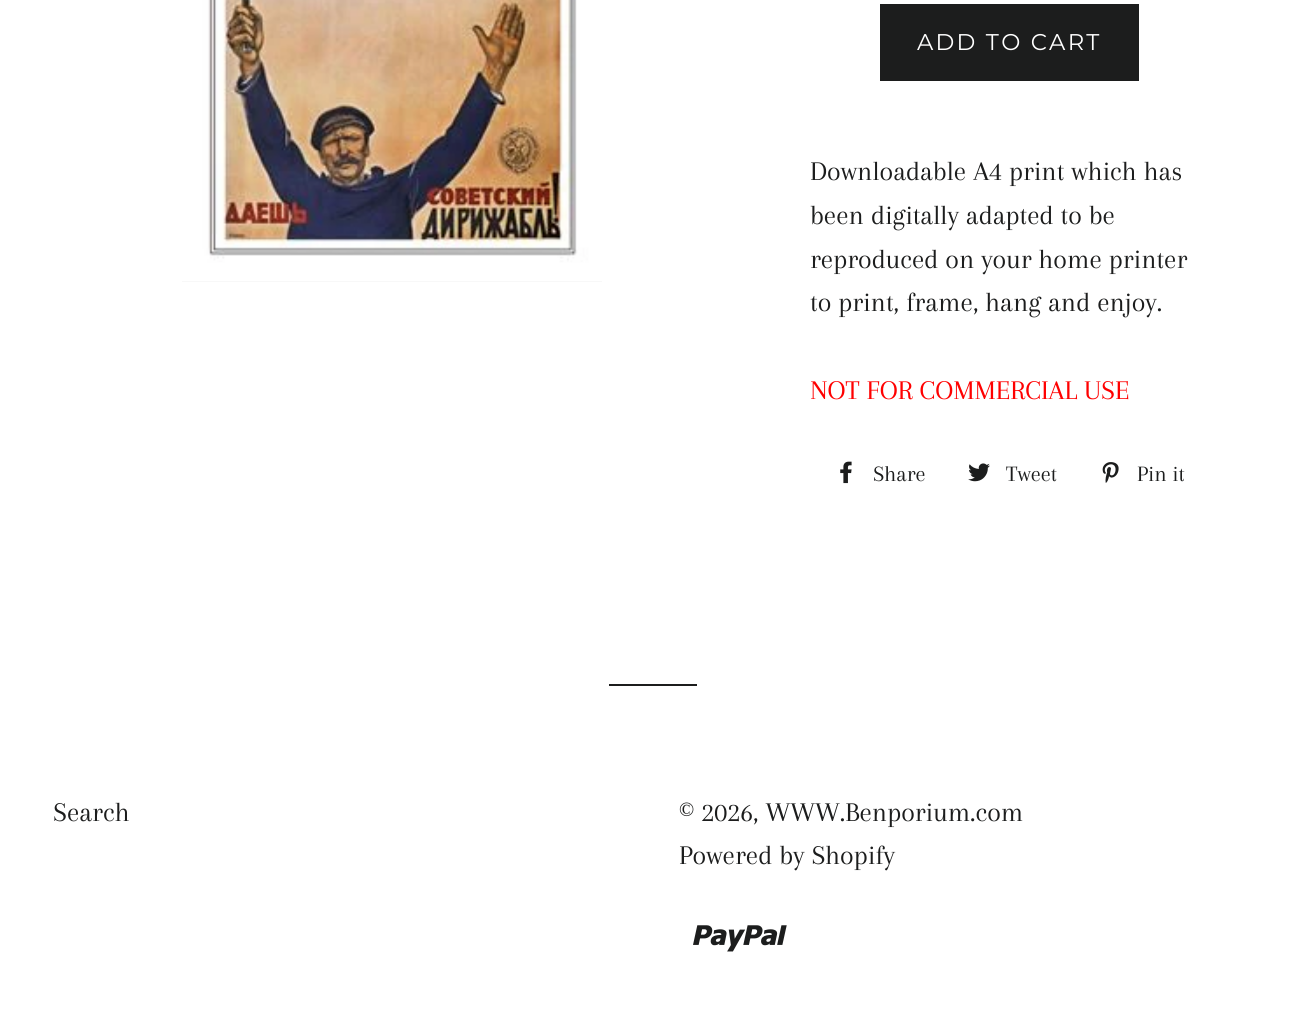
import math
import cairo


def write_spaced(ctx, x, y, s, letter, word):
	ctx.move_to(x, y)
	for ch in s:
		ctx.show_text(ch)
		ctx.rel_move_to(letter + word * (ch == ' '), 0)

def paste(ctx, path, x, y, w, h):
	ctx.save()
	ctx.set_source_surface(cairo.ImageSurface.create_from_png(path), x, y)
	ctx.rectangle(x, y, w, h)
	ctx.fill()
	ctx.restore()

def draw(ctx):
	ctx.set_source_rgb(1, 1, 1)
	ctx.paint()
	ctx.set_source_rgb(0.969, 0.969, 0.969)
	ctx.rectangle(182, 281, 420, 1)
	ctx.fill()
	paste(ctx, 'media/1.png', 182, 0, 420, 281)
	ctx.set_source_rgb(0.11, 0.114, 0.114)
	ctx.rectangle(880, 4, 259, 77)
	ctx.fill()
	ctx.select_font_face('Montserrat Thin')
	ctx.set_font_size(22.75)
	ctx.set_source_rgb(1, 1, 1)
	write_spaced(ctx, 917, 50, 'ADD TO CART', 2.25, 0)
	ctx.select_font_face('Arapey')
	ctx.set_font_size(28)
	ctx.set_source_rgb(0.11, 0.114, 0.114)
	for x, y, s in [
		(810, 180, 'Downloadable A4 print which has'),
		(810, 224, 'been digitally adapted to be'),
		(810, 268, 'reproduced on your home printer'),
		(810, 311, 'to print, frame, hang and enjoy.'),
	]:
		ctx.move_to(x, y)
		ctx.show_text(s)
	ctx.set_source_rgb(1, 0, 0)
	ctx.move_to(810, 399)
	ctx.show_text('NOT FOR COMMERCIAL USE')
	paste(ctx, 'media/2.png', 840, 461, 12, 23)
	ctx.set_font_size(22.75)
	ctx.set_source_rgb(0.11, 0.114, 0.114)
	ctx.move_to(873, 481)
	ctx.show_text('Share')
	paste(ctx, 'media/3.png', 968, 463, 22, 19)
	ctx.move_to(1006, 481)
	ctx.show_text('Tweet')
	paste(ctx, 'media/4.png', 1102, 462, 17, 21)
	ctx.move_to(1137, 481)
	ctx.show_text('Pin it')
	ctx.rectangle(609, 684, 88, 2)
	ctx.fill()
	ctx.set_font_size(28)
	for x, y, s in [
		(53, 821, 'Search'),
		(679, 821, '© 2026, WWW.Benporium.com'),
		(679, 864, 'Powered by Shopify'),
	]:
		ctx.move_to(x, y)
		ctx.show_text(s)
	paste(ctx, 'media/5.png', 693, 925, 94, 27)


surface = cairo.ImageSurface(cairo.FORMAT_RGB24, 1305, 1032)
ctx = cairo.Context(surface)
options = cairo.FontOptions()
options.set_hint_metrics(cairo.HINT_METRICS_OFF)
options.set_hint_style(cairo.HINT_STYLE_NONE)
ctx.set_font_options(options)
ctx.set_miter_limit(4)
draw(ctx)
surface.write_to_png('image.png')
